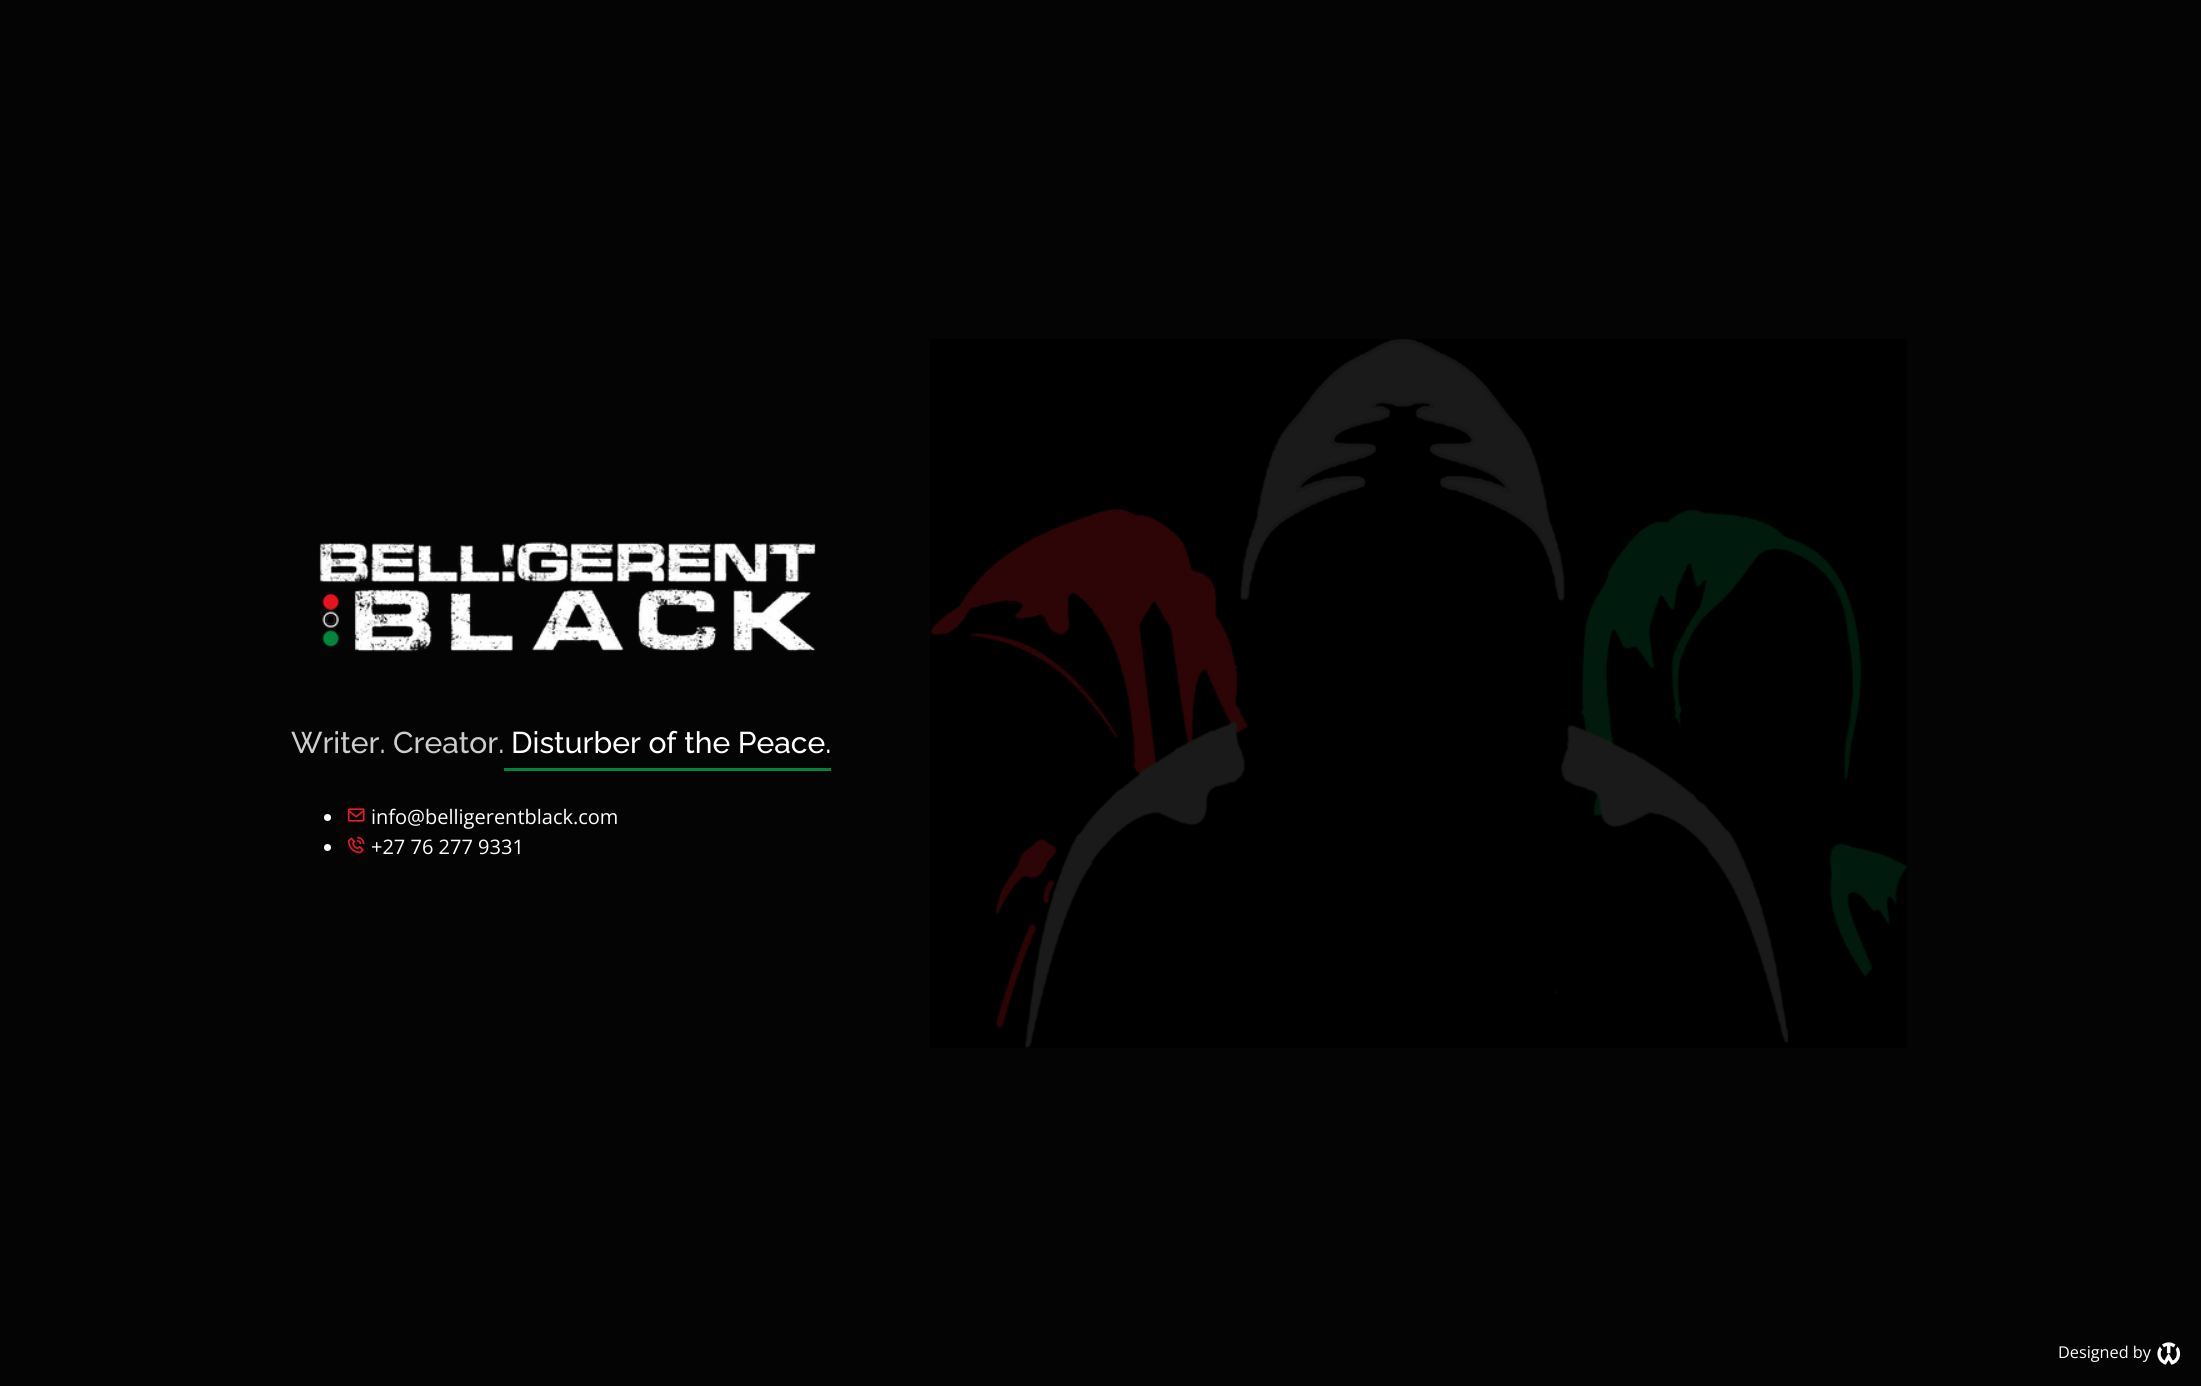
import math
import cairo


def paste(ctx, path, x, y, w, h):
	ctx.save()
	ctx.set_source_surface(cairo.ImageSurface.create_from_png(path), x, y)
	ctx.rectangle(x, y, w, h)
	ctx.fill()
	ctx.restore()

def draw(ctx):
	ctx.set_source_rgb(0.016, 0.016, 0.016)
	ctx.paint()
	paste(ctx, 'media/1.png', 319, 542, 497, 110)
	ctx.select_font_face('Raleway Medium')
	ctx.set_font_size(30)
	ctx.set_source_rgb(0.804, 0.804, 0.804)
	ctx.move_to(291, 753)
	ctx.show_text('Writer. Creator.')
	ctx.set_source_rgb(1, 1, 1)
	ctx.move_to(511, 753)
	ctx.show_text('Disturber of the Peace.')
	ctx.set_source_rgb(0, 0.522, 0.247)
	ctx.rectangle(504, 768, 327, 3)
	ctx.fill()
	ctx.set_source_rgb(1, 1, 1)
	ctx.arc(327.5, 817.5, 3.5, 0, 2 * math.pi)
	ctx.fill()
	paste(ctx, 'media/2.png', 347, 808, 18, 14)
	ctx.select_font_face('Open Sans')
	ctx.set_font_size(20)
	ctx.move_to(371, 824)
	ctx.show_text('info@belligerentblack.com')
	ctx.new_path()
	ctx.arc(327.5, 847.5, 3.5, 0, 2 * math.pi)
	ctx.fill()
	paste(ctx, 'media/3.png', 347, 836, 18, 18)
	ctx.move_to(371, 854)
	ctx.show_text('+27 76 277 9331')
	paste(ctx, 'media/4.png', 930, 339, 977, 709)
	ctx.set_font_size(16.25)
	ctx.move_to(2058, 1358)
	ctx.show_text('Designed by')
	paste(ctx, 'media/5.png', 2157, 1342, 24, 23)


surface = cairo.ImageSurface(cairo.FORMAT_RGB24, 2201, 1386)
ctx = cairo.Context(surface)
options = cairo.FontOptions()
options.set_hint_metrics(cairo.HINT_METRICS_OFF)
options.set_hint_style(cairo.HINT_STYLE_NONE)
ctx.set_font_options(options)
ctx.set_miter_limit(4)
draw(ctx)
surface.write_to_png('image.png')
